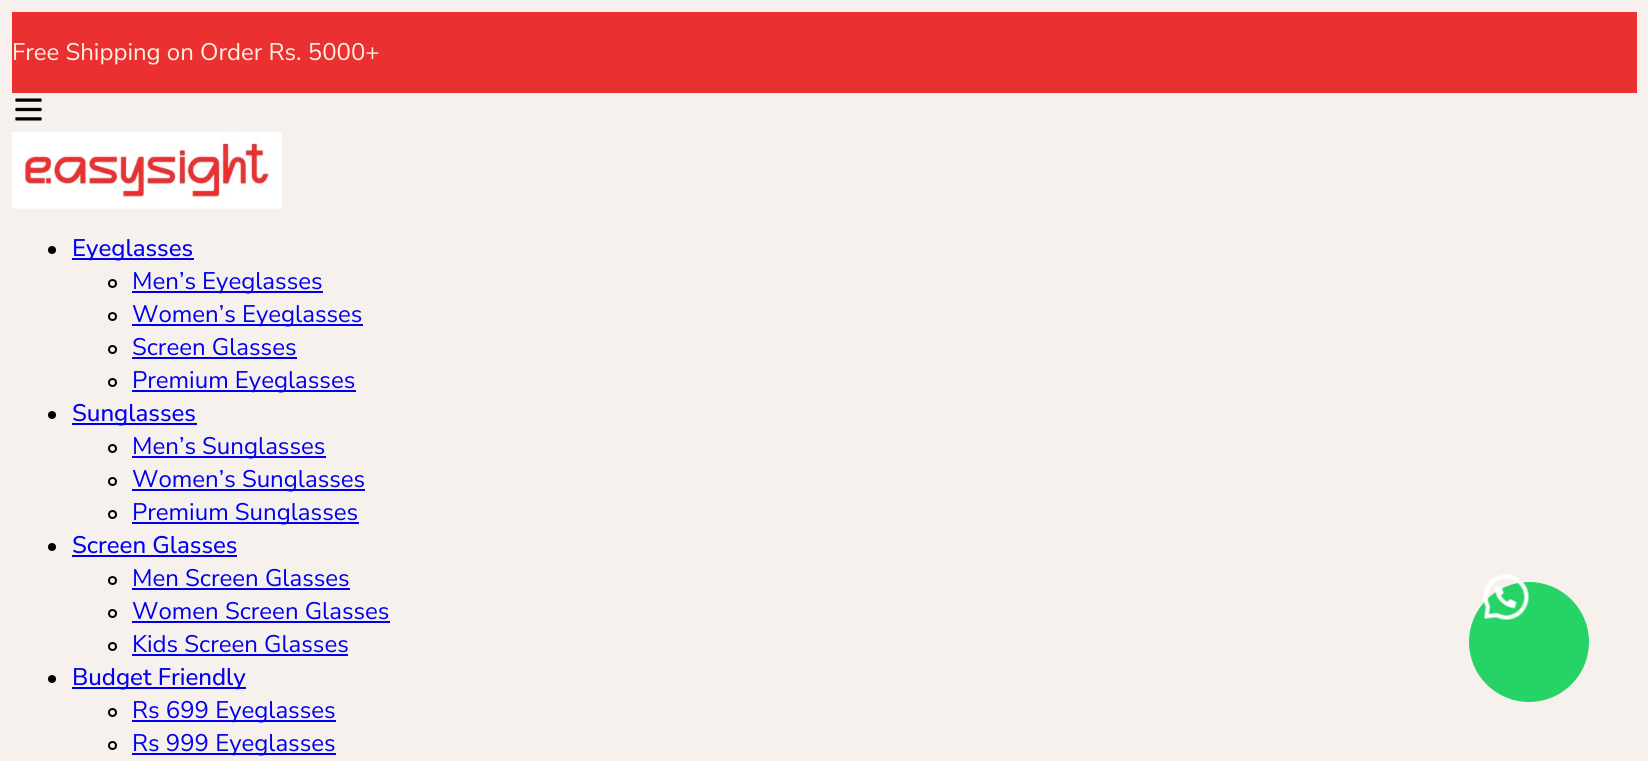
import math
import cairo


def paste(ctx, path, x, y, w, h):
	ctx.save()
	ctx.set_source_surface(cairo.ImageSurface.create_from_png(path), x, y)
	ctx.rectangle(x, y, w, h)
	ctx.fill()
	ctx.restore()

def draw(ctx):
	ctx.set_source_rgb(0.961, 0.945, 0.929)
	ctx.paint()
	ctx.set_source_rgb(0.918, 0.188, 0.192)
	ctx.rectangle(12, 12, 1625, 81)
	ctx.fill()
	ctx.select_font_face('Nunito Sans')
	ctx.set_font_size(24)
	ctx.set_source_rgb(0.992, 0.945, 0.89)
	ctx.move_to(12, 60)
	ctx.show_text('Free Shipping on Order Rs. 5000+')
	paste(ctx, 'media/1.png', 15, 98, 27, 23)
	paste(ctx, 'media/2.png', 12, 132, 270, 77)
	ctx.set_source_rgb(0, 0, 0)
	ctx.arc(52, 250, 4, 0, 2 * math.pi)
	ctx.fill()
	ctx.set_source_rgb(0, 0, 0.933)
	ctx.rectangle(72, 258, 122, 2)
	ctx.fill()
	ctx.select_font_face('Nunito Sans Medium')
	ctx.move_to(72, 256)
	ctx.show_text('Eyeglasses')
	ctx.new_path()
	ctx.arc(112.5, 283.5, 3.5, 0, 2 * math.pi)
	ctx.set_source_rgb(0, 0, 0)
	ctx.stroke()
	ctx.set_source_rgb(0, 0, 0.933)
	ctx.rectangle(132, 291, 191, 2)
	ctx.fill()
	ctx.select_font_face('Nunito Sans')
	ctx.move_to(132, 289)
	ctx.show_text('Men’s Eyeglasses')
	ctx.new_path()
	ctx.arc(112.5, 316.5, 3.5, 0, 2 * math.pi)
	ctx.set_source_rgb(0, 0, 0)
	ctx.stroke()
	ctx.set_source_rgb(0, 0, 0.933)
	ctx.rectangle(132, 324, 231, 2)
	ctx.fill()
	ctx.move_to(132, 322)
	ctx.show_text('Women’s Eyeglasses')
	ctx.new_path()
	ctx.arc(112.5, 349.5, 3.5, 0, 2 * math.pi)
	ctx.set_source_rgb(0, 0, 0)
	ctx.stroke()
	ctx.set_source_rgb(0, 0, 0.933)
	ctx.move_to(132, 355)
	ctx.show_text('Screen Glasses')
	ctx.rectangle(132, 357, 165, 2)
	ctx.fill()
	ctx.arc(112.5, 382.5, 3.5, 0, 2 * math.pi)
	ctx.set_source_rgb(0, 0, 0)
	ctx.stroke()
	ctx.set_source_rgb(0, 0, 0.933)
	ctx.rectangle(132, 390, 224, 2)
	ctx.fill()
	ctx.move_to(132, 388)
	ctx.show_text('Premium Eyeglasses')
	ctx.set_source_rgb(0, 0, 0)
	ctx.new_path()
	ctx.arc(52, 415, 4, 0, 2 * math.pi)
	ctx.fill()
	ctx.set_source_rgb(0, 0, 0.933)
	ctx.rectangle(72, 423, 125, 2)
	ctx.fill()
	ctx.select_font_face('Nunito Sans Medium')
	ctx.move_to(72, 421)
	ctx.show_text('Sunglasses')
	ctx.new_path()
	ctx.arc(112.5, 448.5, 3.5, 0, 2 * math.pi)
	ctx.set_source_rgb(0, 0, 0)
	ctx.stroke()
	ctx.set_source_rgb(0, 0, 0.933)
	ctx.rectangle(132, 456, 194, 2)
	ctx.fill()
	ctx.select_font_face('Nunito Sans')
	ctx.move_to(132, 454)
	ctx.show_text('Men’s Sunglasses')
	ctx.new_path()
	ctx.arc(112.5, 481.5, 3.5, 0, 2 * math.pi)
	ctx.set_source_rgb(0, 0, 0)
	ctx.stroke()
	ctx.set_source_rgb(0, 0, 0.933)
	ctx.rectangle(132, 489, 233, 2)
	ctx.fill()
	ctx.move_to(132, 487)
	ctx.show_text('Women’s Sunglasses')
	ctx.new_path()
	ctx.arc(112.5, 514.5, 3.5, 0, 2 * math.pi)
	ctx.set_source_rgb(0, 0, 0)
	ctx.stroke()
	ctx.set_source_rgb(0, 0, 0.933)
	ctx.rectangle(132, 522, 227, 2)
	ctx.fill()
	ctx.move_to(132, 520)
	ctx.show_text('Premium Sunglasses')
	ctx.set_source_rgb(0, 0, 0)
	ctx.new_path()
	ctx.arc(52, 547, 4, 0, 2 * math.pi)
	ctx.fill()
	ctx.select_font_face('Nunito Sans Medium')
	ctx.set_source_rgb(0, 0, 0.933)
	ctx.move_to(72, 553)
	ctx.show_text('Screen Glasses')
	ctx.rectangle(72, 555, 165, 2)
	ctx.fill()
	ctx.arc(112.5, 580.5, 3.5, 0, 2 * math.pi)
	ctx.set_source_rgb(0, 0, 0)
	ctx.stroke()
	ctx.select_font_face('Nunito Sans')
	ctx.set_source_rgb(0, 0, 0.933)
	ctx.move_to(132, 586)
	ctx.show_text('Men Screen Glasses')
	ctx.rectangle(132, 588, 218, 2)
	ctx.fill()
	ctx.arc(112.5, 613.5, 3.5, 0, 2 * math.pi)
	ctx.set_source_rgb(0, 0, 0)
	ctx.stroke()
	ctx.set_source_rgb(0, 0, 0.933)
	ctx.move_to(132, 619)
	ctx.show_text('Women Screen Glasses')
	ctx.rectangle(132, 621, 258, 2)
	ctx.fill()
	ctx.arc(112.5, 646.5, 3.5, 0, 2 * math.pi)
	ctx.set_source_rgb(0, 0, 0)
	ctx.stroke()
	ctx.set_source_rgb(0, 0, 0.933)
	ctx.move_to(132, 652)
	ctx.show_text('Kids Screen Glasses')
	ctx.rectangle(132, 654, 216, 2)
	ctx.fill()
	ctx.set_source_rgb(0, 0, 0)
	ctx.arc(52, 679, 4, 0, 2 * math.pi)
	ctx.fill()
	ctx.set_source_rgb(0, 0, 0.933)
	ctx.rectangle(72, 687, 174, 2)
	ctx.fill()
	ctx.select_font_face('Nunito Sans Medium')
	ctx.move_to(72, 685)
	ctx.show_text('Budget Friendly')
	ctx.new_path()
	ctx.arc(112.5, 712.5, 3.5, 0, 2 * math.pi)
	ctx.set_source_rgb(0, 0, 0)
	ctx.stroke()
	ctx.set_source_rgb(0, 0, 0.933)
	ctx.rectangle(132, 720, 204, 2)
	ctx.fill()
	ctx.select_font_face('Nunito Sans')
	ctx.move_to(132, 718)
	ctx.show_text('Rs 699 Eyeglasses')
	ctx.new_path()
	ctx.arc(112.5, 745.5, 3.5, 0, 2 * math.pi)
	ctx.set_source_rgb(0, 0, 0)
	ctx.stroke()
	ctx.set_source_rgb(0, 0, 0.933)
	ctx.rectangle(132, 753, 204, 2)
	ctx.fill()
	ctx.move_to(132, 751)
	ctx.show_text('Rs 999 Eyeglasses')
	ctx.set_source_rgb(0.145, 0.827, 0.4)
	ctx.new_path()
	ctx.arc(1529, 642, 60, 0, 2 * math.pi)
	ctx.fill()
	paste(ctx, 'media/3.png', 1483, 574, 46, 46)


surface = cairo.ImageSurface(cairo.FORMAT_RGB24, 1648, 761)
ctx = cairo.Context(surface)
options = cairo.FontOptions()
options.set_hint_metrics(cairo.HINT_METRICS_OFF)
options.set_hint_style(cairo.HINT_STYLE_NONE)
ctx.set_font_options(options)
ctx.set_miter_limit(4)
draw(ctx)
surface.write_to_png('image.png')
